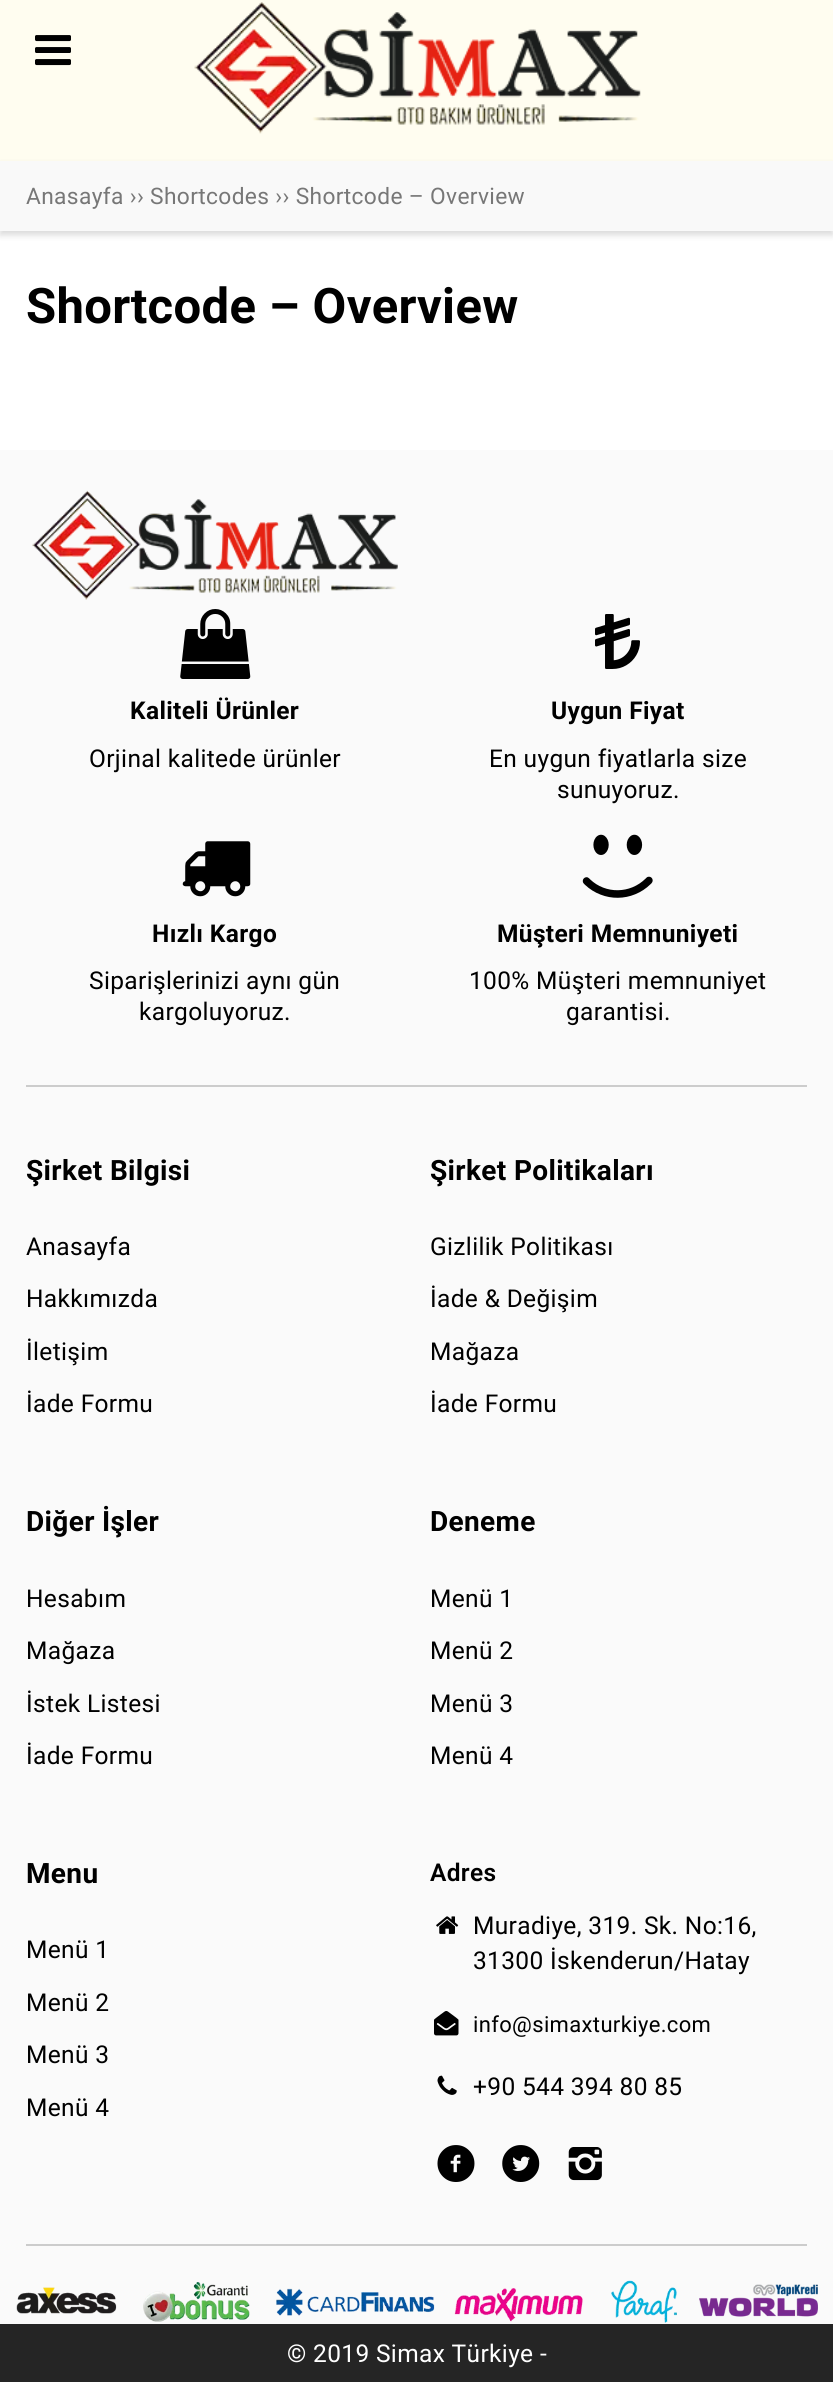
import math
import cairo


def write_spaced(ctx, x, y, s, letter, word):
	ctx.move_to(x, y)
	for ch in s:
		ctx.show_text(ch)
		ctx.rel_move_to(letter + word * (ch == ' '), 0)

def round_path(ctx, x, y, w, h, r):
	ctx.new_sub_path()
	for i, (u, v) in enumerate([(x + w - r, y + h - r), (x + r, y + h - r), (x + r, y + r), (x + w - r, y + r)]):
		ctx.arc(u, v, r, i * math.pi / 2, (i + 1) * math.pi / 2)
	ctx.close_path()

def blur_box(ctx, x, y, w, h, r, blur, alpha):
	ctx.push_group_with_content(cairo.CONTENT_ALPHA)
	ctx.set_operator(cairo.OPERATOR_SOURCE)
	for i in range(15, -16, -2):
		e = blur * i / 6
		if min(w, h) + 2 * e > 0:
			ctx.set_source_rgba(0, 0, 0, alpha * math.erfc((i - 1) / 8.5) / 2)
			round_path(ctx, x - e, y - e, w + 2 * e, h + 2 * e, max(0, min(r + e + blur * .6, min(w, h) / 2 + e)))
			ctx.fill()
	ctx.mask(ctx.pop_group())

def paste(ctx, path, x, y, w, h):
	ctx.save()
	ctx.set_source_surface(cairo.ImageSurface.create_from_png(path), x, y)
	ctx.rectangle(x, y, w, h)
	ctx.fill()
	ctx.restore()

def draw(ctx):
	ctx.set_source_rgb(1, 1, 1)
	ctx.paint()
	ctx.set_source_rgb(1, 0.992, 0.941)
	ctx.rectangle(0, 0, 833, 161)
	ctx.fill()
	paste(ctx, 'media/1.png', 35, 35, 36, 31)
	paste(ctx, 'media/2.png', 194, 2, 447, 132)
	ctx.set_source_rgb(0, 0, 0)
	blur_box(ctx, 0, 165, 833, 70, 0, 3.5, 0.15)
	ctx.set_source_rgb(0.976, 0.976, 0.976)
	ctx.rectangle(0, 161, 833, 70)
	ctx.fill()
	ctx.select_font_face('Roboto')
	ctx.set_font_size(22.75)
	ctx.set_source_rgb(0.467, 0.467, 0.467)
	write_spaced(ctx, 26, 204, 'Anasayfa ›› Shortcodes ›› Shortcode – Overview', 0.35, 0)
	ctx.select_font_face('Roboto', cairo.FONT_SLANT_NORMAL, cairo.FONT_WEIGHT_BOLD)
	ctx.set_font_size(49)
	ctx.set_source_rgb(0, 0, 0)
	write_spaced(ctx, 26, 323, 'Shortcode – Overview', 0.35, 0)
	ctx.set_source_rgb(0.98, 0.98, 0.98)
	ctx.rectangle(0, 450, 833, 1874)
	ctx.fill()
	paste(ctx, 'media/3.png', 32, 490, 366, 110)
	paste(ctx, 'media/4.png', 180, 609, 71, 70)
	ctx.set_font_size(24.5)
	ctx.set_source_rgb(0, 0, 0)
	write_spaced(ctx, 130, 719, 'Kaliteli Ürünler', 0.35, 0)
	ctx.select_font_face('Roboto')
	write_spaced(ctx, 89, 767, 'Orjinal kalitede ürünler', 0.35, 0)
	paste(ctx, 'media/5.png', 595, 614, 45, 55)
	ctx.select_font_face('Roboto', cairo.FONT_SLANT_NORMAL, cairo.FONT_WEIGHT_BOLD)
	write_spaced(ctx, 551, 719, 'Uygun Fiyat', 0.35, 0)
	ctx.select_font_face('Roboto')
	write_spaced(ctx, 489, 767, 'En uygun fiyatlarla size', 0.35, 0)
	write_spaced(ctx, 557, 798, 'sunuyoruz.', 0.35, 0)
	paste(ctx, 'media/6.png', 182, 841, 69, 56)
	ctx.select_font_face('Roboto', cairo.FONT_SLANT_NORMAL, cairo.FONT_WEIGHT_BOLD)
	write_spaced(ctx, 152, 942, 'Hızlı Kargo', 0.35, 0)
	ctx.select_font_face('Roboto')
	write_spaced(ctx, 89, 989, 'Siparişlerinizi aynı gün', 0.35, 0)
	write_spaced(ctx, 139, 1020, 'kargoluyoruz.', 0.35, 0)
	paste(ctx, 'media/7.png', 582, 834, 71, 64)
	ctx.select_font_face('Roboto', cairo.FONT_SLANT_NORMAL, cairo.FONT_WEIGHT_BOLD)
	write_spaced(ctx, 497, 942, 'Müşteri Memnuniyeti', 0.35, 0)
	ctx.select_font_face('Roboto')
	write_spaced(ctx, 469, 989, '100% Müşteri memnuniyet', 0.35, 0)
	write_spaced(ctx, 566, 1020, 'garantisi.', 0.35, 0)
	ctx.set_source_rgb(0.8, 0.8, 0.8)
	ctx.rectangle(26, 1085, 781, 2)
	ctx.fill()
	ctx.select_font_face('Roboto', cairo.FONT_SLANT_NORMAL, cairo.FONT_WEIGHT_BOLD)
	ctx.set_font_size(28)
	ctx.set_source_rgb(0, 0, 0)
	write_spaced(ctx, 26, 1180, 'Şirket Bilgisi', 0.35, 0)
	ctx.select_font_face('Roboto')
	ctx.set_font_size(24.5)
	for x, y, s in [
		(26, 1255, 'Anasayfa'),
		(26, 1307, 'Hakkımızda'),
		(26, 1360, 'İletişim'),
		(26, 1412, 'İade Formu'),
	]:
		write_spaced(ctx, x, y, s, 0.35, 0)
	ctx.select_font_face('Roboto', cairo.FONT_SLANT_NORMAL, cairo.FONT_WEIGHT_BOLD)
	ctx.set_font_size(28)
	write_spaced(ctx, 430, 1180, 'Şirket Politikaları', 0.35, 0)
	ctx.select_font_face('Roboto')
	ctx.set_font_size(24.5)
	for x, y, s in [
		(430, 1255, 'Gizlilik Politikası'),
		(430, 1307, 'İade & Değişim'),
		(430, 1360, 'Mağaza'),
		(430, 1412, 'İade Formu'),
	]:
		write_spaced(ctx, x, y, s, 0.35, 0)
	ctx.select_font_face('Roboto', cairo.FONT_SLANT_NORMAL, cairo.FONT_WEIGHT_BOLD)
	ctx.set_font_size(28)
	write_spaced(ctx, 26, 1531, 'Diğer İşler', 0.35, 0)
	ctx.select_font_face('Roboto')
	ctx.set_font_size(24.5)
	for x, y, s in [
		(26, 1607, 'Hesabım'),
		(26, 1659, 'Mağaza'),
		(26, 1712, 'İstek Listesi'),
		(26, 1764, 'İade Formu'),
	]:
		write_spaced(ctx, x, y, s, 0.35, 0)
	ctx.select_font_face('Roboto', cairo.FONT_SLANT_NORMAL, cairo.FONT_WEIGHT_BOLD)
	ctx.set_font_size(28)
	write_spaced(ctx, 430, 1531, 'Deneme', 0.35, 0)
	ctx.select_font_face('Roboto')
	ctx.set_font_size(24.5)
	for x, y, s in [
		(430, 1607, 'Menü 1'),
		(430, 1659, 'Menü 2'),
		(430, 1712, 'Menü 3'),
		(430, 1764, 'Menü 4'),
	]:
		write_spaced(ctx, x, y, s, 0.35, 0)
	ctx.select_font_face('Roboto', cairo.FONT_SLANT_NORMAL, cairo.FONT_WEIGHT_BOLD)
	ctx.set_font_size(28)
	write_spaced(ctx, 26, 1883, 'Menu', 0.35, 0)
	ctx.select_font_face('Roboto')
	ctx.set_font_size(24.5)
	for x, y, s in [
		(26, 1958, 'Menü 1'),
		(26, 2011, 'Menü 2'),
		(26, 2063, 'Menü 3'),
		(26, 2116, 'Menü 4'),
	]:
		write_spaced(ctx, x, y, s, 0.35, 0)
	ctx.select_font_face('Roboto SemiBold')
	write_spaced(ctx, 430, 1881, 'Adres', 0.35, 0)
	paste(ctx, 'media/8.png', 436, 1916, 23, 18)
	ctx.select_font_face('Roboto')
	write_spaced(ctx, 473, 1934, 'Muradiye, 319. Sk. No:16,', 0.35, 0)
	write_spaced(ctx, 473, 1969, '31300 İskenderun/Hatay', 0.35, 0)
	paste(ctx, 'media/9.png', 434, 2011, 25, 25)
	ctx.set_font_size(22)
	write_spaced(ctx, 473, 2032, 'info@simaxturkiye.com', 0.35, 0)
	paste(ctx, 'media/10.png', 437, 2075, 20, 20)
	ctx.set_font_size(24.5)
	write_spaced(ctx, 473, 2095, '+90 544 394 80 85', 0.35, 0)
	paste(ctx, 'media/11.png', 437, 2145, 38, 37)
	paste(ctx, 'media/12.png', 502, 2145, 38, 37)
	paste(ctx, 'media/13.png', 568, 2147, 34, 34)
	ctx.set_source_rgb(0.8, 0.8, 0.8)
	ctx.rectangle(26, 2244, 781, 2)
	ctx.fill()
	paste(ctx, 'media/14.png', 16, 2280, 802, 43)
	ctx.set_source_rgb(0.145, 0.145, 0.145)
	ctx.rectangle(0, 2324, 833, 58)
	ctx.fill()
	ctx.set_source_rgb(1, 1, 1)
	write_spaced(ctx, 287, 2362, '© 2019 Simax Türkiye -', 0.35, 0)


surface = cairo.ImageSurface(cairo.FORMAT_RGB24, 833, 2382)
ctx = cairo.Context(surface)
options = cairo.FontOptions()
options.set_hint_metrics(cairo.HINT_METRICS_OFF)
options.set_hint_style(cairo.HINT_STYLE_NONE)
ctx.set_font_options(options)
ctx.set_miter_limit(4)
draw(ctx)
surface.write_to_png('image.png')
